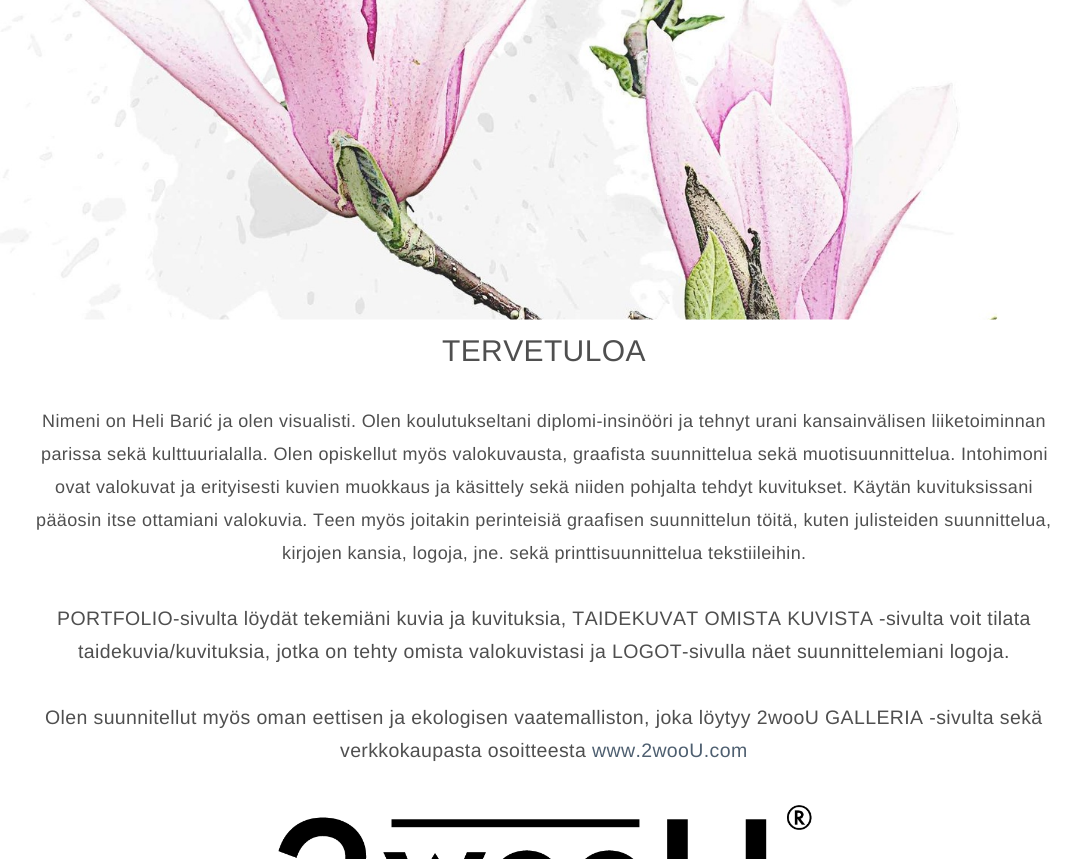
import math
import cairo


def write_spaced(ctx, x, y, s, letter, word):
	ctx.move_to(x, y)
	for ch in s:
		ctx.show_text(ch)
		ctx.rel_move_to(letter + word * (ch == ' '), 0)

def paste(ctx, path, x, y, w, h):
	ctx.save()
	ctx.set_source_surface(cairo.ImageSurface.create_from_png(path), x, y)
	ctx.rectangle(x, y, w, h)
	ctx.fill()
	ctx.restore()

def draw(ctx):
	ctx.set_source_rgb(1, 1, 1)
	ctx.paint()
	paste(ctx, 'media/1.png', 0, 0, 999, 320)
	ctx.select_font_face('Liberation Sans')
	ctx.set_font_size(30)
	ctx.set_source_rgb(0.31, 0.31, 0.31)
	write_spaced(ctx, 442, 361, 'TERVETULOA', 0.38, 0)
	ctx.set_font_size(18)
	for x, y, s in [
		(42, 427, 'Nimeni on Heli Barić ja olen visualisti. Olen koulutukseltani diplomi-insinööri ja tehnyt urani kansainvälisen liiketoiminnan'),
		(41, 460, 'parissa sekä kulttuurialalla. Olen opiskellut myös valokuvausta, graafista suunnittelua sekä muotisuunnittelua. Intohimoni'),
		(55, 493, 'ovat valokuvat ja erityisesti kuvien muokkaus ja käsittely sekä niiden pohjalta tehdyt kuvitukset. Käytän kuvituksissani'),
		(36, 526, 'pääosin itse ottamiani valokuvia. Teen myös joitakin perinteisiä graafisen suunnittelun töitä, kuten julisteiden suunnittelua,'),
		(282, 559, 'kirjojen kansia, logoja, jne. sekä printtisuunnittelua tekstiileihin.'),
	]:
		write_spaced(ctx, x, y, s, 0.38, 0)
	ctx.set_font_size(19.5)
	for x, y, s in [
		(57, 625, 'PORTFOLIO-sivulta löydät tekemiäni kuvia ja kuvituksia, TAIDEKUVAT OMISTA KUVISTA -sivulta voit tilata'),
		(78, 658, 'taidekuvia/kuvituksia, jotka on tehty omista valokuvistasi ja LOGOT-sivulla näet suunnittelemiani logoja.'),
		(45, 724, 'Olen suunnitellut myös oman eettisen ja ekologisen vaatemalliston, joka löytyy 2wooU GALLERIA -sivulta sekä'),
		(340, 757, 'verkkokaupasta osoitteesta'),
	]:
		write_spaced(ctx, x, y, s, 0.38, 0)
	ctx.set_source_rgb(0.306, 0.373, 0.439)
	write_spaced(ctx, 592, 757, 'www.2wooU.com', 0.38, 0)
	paste(ctx, 'media/2.png', 278, 805, 534, 54)


surface = cairo.ImageSurface(cairo.FORMAT_RGB24, 1087, 859)
ctx = cairo.Context(surface)
options = cairo.FontOptions()
options.set_hint_metrics(cairo.HINT_METRICS_OFF)
options.set_hint_style(cairo.HINT_STYLE_NONE)
ctx.set_font_options(options)
ctx.set_miter_limit(4)
draw(ctx)
surface.write_to_png('image.png')
